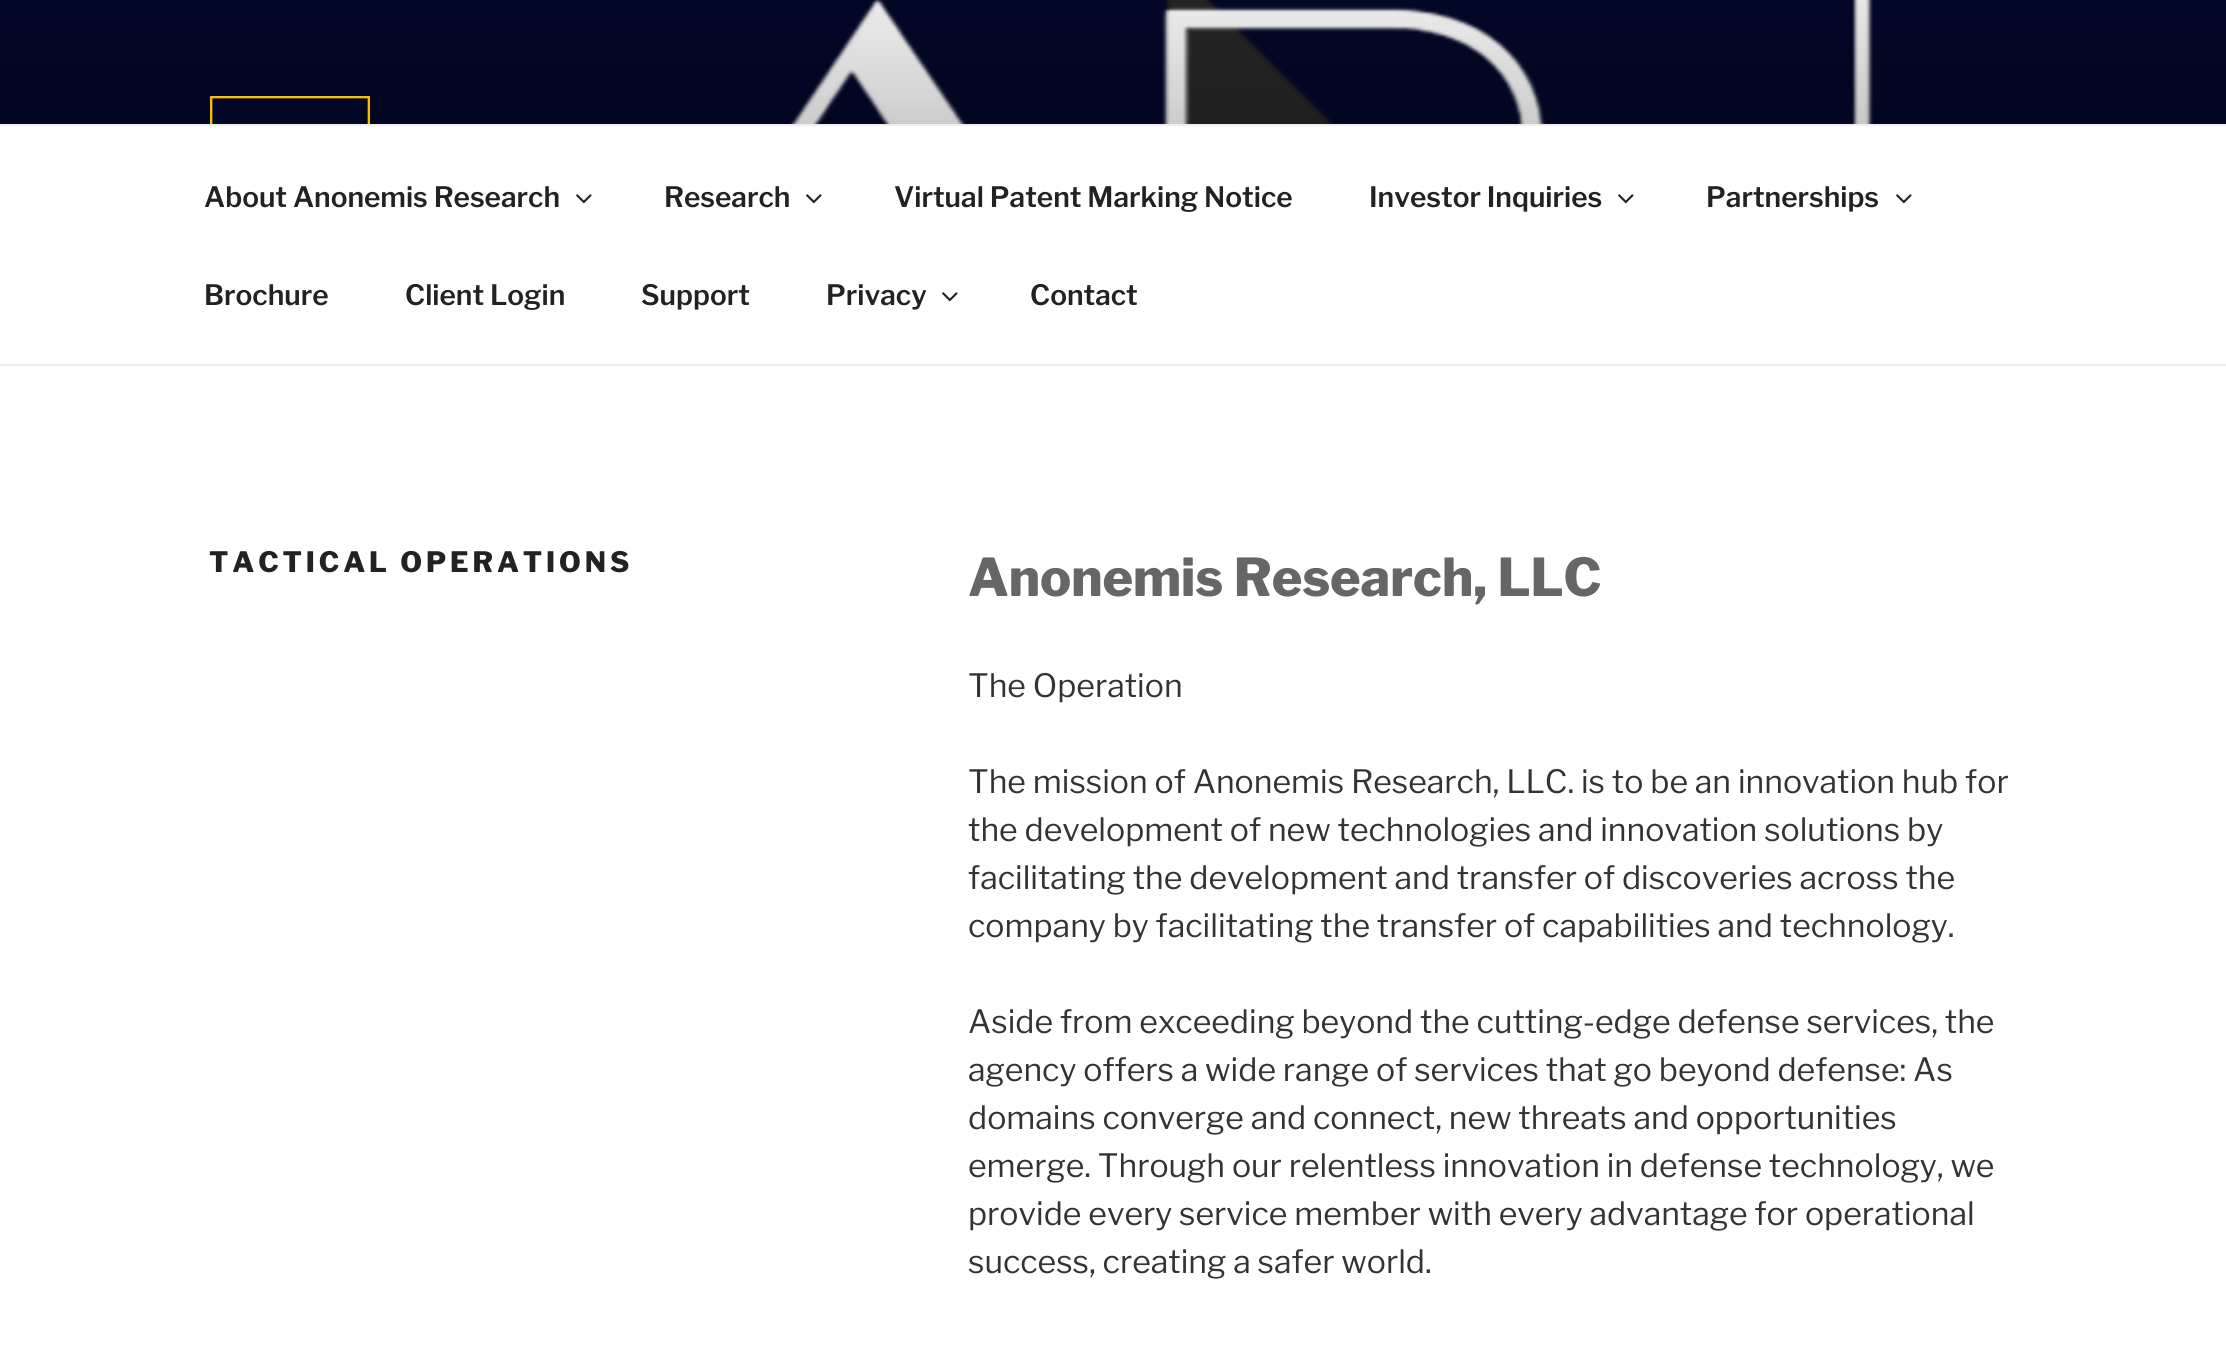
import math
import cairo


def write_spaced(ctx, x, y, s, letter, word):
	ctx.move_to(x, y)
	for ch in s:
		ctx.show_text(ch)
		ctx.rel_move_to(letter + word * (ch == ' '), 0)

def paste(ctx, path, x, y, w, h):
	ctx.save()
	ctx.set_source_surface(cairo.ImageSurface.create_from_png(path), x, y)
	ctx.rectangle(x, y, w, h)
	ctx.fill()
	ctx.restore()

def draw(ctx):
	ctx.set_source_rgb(1, 1, 1)
	ctx.paint()
	paste(ctx, 'media/1.png', 0, 0, 2226, 124)
	paste(ctx, 'media/2.png', 210, 96, 160, 28)
	ctx.set_source_rgb(0.933, 0.933, 0.933)
	ctx.rectangle(0, 124, 2226, 2)
	ctx.fill()
	ctx.rectangle(0, 364, 2226, 2)
	ctx.fill()
	ctx.select_font_face('Libre Franklin SemiBold')
	ctx.set_font_size(28)
	ctx.set_source_rgb(0.133, 0.133, 0.133)
	ctx.move_to(204, 207)
	ctx.show_text('About Anonemis Research')
	paste(ctx, 'media/3.png', 576, 194, 16, 10)
	ctx.move_to(664, 207)
	ctx.show_text('Research')
	paste(ctx, 'media/3.png', 806, 194, 16, 10)
	ctx.move_to(894, 207)
	ctx.show_text('Virtual Patent Marking Notice')
	ctx.move_to(1369, 207)
	ctx.show_text('Investor Inquiries')
	paste(ctx, 'media/3.png', 1618, 194, 16, 10)
	ctx.move_to(1706, 207)
	ctx.show_text('Partnerships')
	paste(ctx, 'media/3.png', 1896, 194, 16, 10)
	for x, y, s in [
		(204, 305, 'Brochure'),
		(405, 305, 'Client Login'),
		(641, 305, 'Support'),
		(826, 305, 'Privacy'),
	]:
		ctx.move_to(x, y)
		ctx.show_text(s)
	paste(ctx, 'media/3.png', 942, 292, 16, 10)
	ctx.move_to(1030, 305)
	ctx.show_text('Contact')
	ctx.select_font_face('Libre Franklin ExtraBold')
	write_spaced(ctx, 209, 572, 'TACTICAL OPERATIONS', 3.9, 0)
	ctx.set_font_size(52)
	ctx.set_source_rgb(0.4, 0.4, 0.4)
	ctx.move_to(968, 596)
	ctx.show_text('Anonemis Research, LLC')
	ctx.select_font_face('Libre Franklin')
	ctx.set_font_size(32)
	ctx.set_source_rgb(0.2, 0.2, 0.2)
	for x, y, s in [
		(968, 697, 'The Operation'),
		(968, 793, 'The mission of Anonemis Research, LLC. is to be an innovation hub for'),
		(968, 841, 'the development of new technologies and innovation solutions by'),
		(968, 889, 'facilitating the development and transfer of discoveries across the'),
		(968, 937, 'company by facilitating the transfer of capabilities and technology.'),
		(968, 1033, 'Aside from exceeding beyond the cutting-edge defense services, the'),
		(968, 1081, 'agency offers a wide range of services that go beyond defense: As'),
		(968, 1129, 'domains converge and connect, new threats and opportunities'),
		(968, 1177, 'emerge. Through our relentless innovation in defense technology, we'),
		(968, 1225, 'provide every service member with every advantage for operational'),
		(968, 1273, 'success, creating a safer world.'),
	]:
		ctx.move_to(x, y)
		ctx.show_text(s)


surface = cairo.ImageSurface(cairo.FORMAT_RGB24, 2226, 1355)
ctx = cairo.Context(surface)
options = cairo.FontOptions()
options.set_hint_metrics(cairo.HINT_METRICS_OFF)
options.set_hint_style(cairo.HINT_STYLE_NONE)
ctx.set_font_options(options)
ctx.set_miter_limit(4)
draw(ctx)
surface.write_to_png('image.png')
